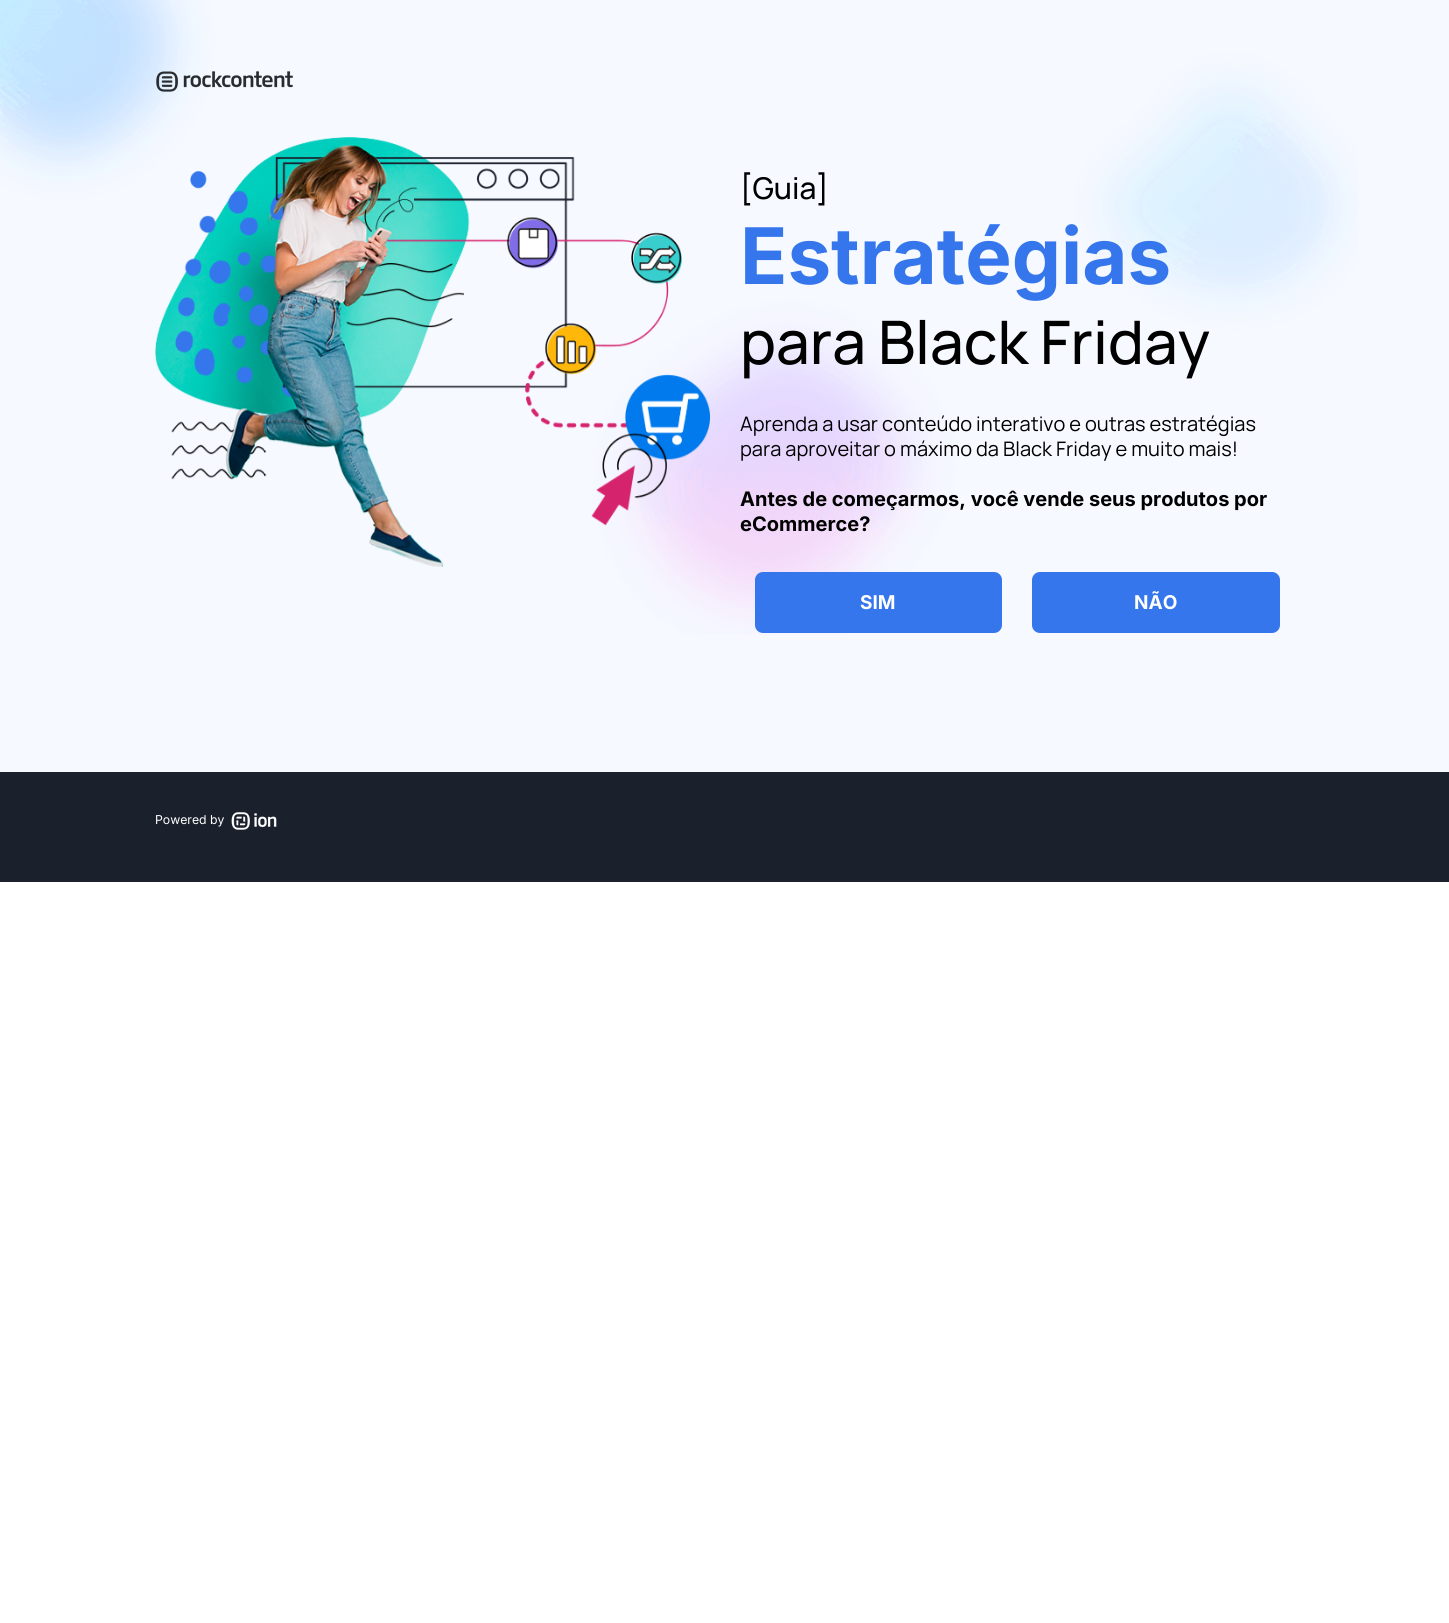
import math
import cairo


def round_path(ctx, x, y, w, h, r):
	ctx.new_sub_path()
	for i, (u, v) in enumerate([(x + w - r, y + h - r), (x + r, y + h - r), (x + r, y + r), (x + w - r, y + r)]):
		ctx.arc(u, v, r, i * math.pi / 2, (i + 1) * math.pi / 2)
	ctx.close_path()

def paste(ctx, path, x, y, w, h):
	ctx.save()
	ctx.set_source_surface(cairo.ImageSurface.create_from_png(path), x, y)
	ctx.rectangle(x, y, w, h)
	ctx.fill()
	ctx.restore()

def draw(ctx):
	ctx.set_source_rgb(1, 1, 1)
	ctx.paint()
	ctx.set_source_rgb(0.961, 0.973, 1)
	ctx.rectangle(0, 0, 1449, 772)
	ctx.fill()
	paste(ctx, 'media/1.png', 0, 0, 1359, 635)
	paste(ctx, 'media/2.png', 156, 71, 137, 21)
	paste(ctx, 'media/3.png', 155, 137, 555, 430)
	ctx.select_font_face('Manrope Medium')
	ctx.set_font_size(30)
	ctx.set_source_rgb(0, 0, 0)
	ctx.move_to(740, 199)
	ctx.show_text('[Guia]')
	ctx.select_font_face('Inter', cairo.FONT_SLANT_NORMAL, cairo.FONT_WEIGHT_BOLD)
	ctx.set_font_size(78)
	ctx.set_source_rgb(0.208, 0.463, 0.929)
	ctx.move_to(740, 284)
	ctx.show_text('Estratégias')
	ctx.select_font_face('Manrope Medium')
	ctx.set_font_size(60)
	ctx.set_source_rgb(0, 0, 0)
	ctx.move_to(740, 364)
	ctx.show_text('para Black Friday')
	ctx.select_font_face('Manrope')
	ctx.set_font_size(20)
	ctx.move_to(740, 431)
	ctx.show_text('Aprenda a usar conteúdo interativo e outras estratégias')
	ctx.move_to(740, 456)
	ctx.show_text('para aproveitar o máximo da Black Friday e muito mais!')
	ctx.select_font_face('Inter', cairo.FONT_SLANT_NORMAL, cairo.FONT_WEIGHT_BOLD)
	ctx.move_to(740, 506)
	ctx.show_text('Antes de começarmos, você vende seus produtos por')
	ctx.move_to(740, 531)
	ctx.show_text('eCommerce?')
	ctx.set_source_rgb(0.208, 0.463, 0.929)
	round_path(ctx, 755, 572, 247, 61, 8)
	ctx.fill()
	ctx.set_font_size(19)
	ctx.set_source_rgb(1, 1, 1)
	ctx.move_to(860, 609)
	ctx.show_text('SIM')
	ctx.set_source_rgb(0.208, 0.463, 0.929)
	round_path(ctx, 1032, 572, 248, 61, 8)
	ctx.fill()
	ctx.set_source_rgb(1, 1, 1)
	ctx.move_to(1134, 609)
	ctx.show_text('NÃO')
	ctx.set_source_rgb(0.102, 0.125, 0.173)
	ctx.rectangle(0, 772, 1449, 110)
	ctx.fill()
	ctx.select_font_face('Inter')
	ctx.set_font_size(12.25)
	ctx.set_source_rgb(1, 1, 1)
	ctx.move_to(155, 824)
	ctx.show_text('Powered by')
	paste(ctx, 'media/4.png', 231, 812, 46, 18)


surface = cairo.ImageSurface(cairo.FORMAT_RGB24, 1449, 1623)
ctx = cairo.Context(surface)
options = cairo.FontOptions()
options.set_hint_metrics(cairo.HINT_METRICS_OFF)
options.set_hint_style(cairo.HINT_STYLE_NONE)
ctx.set_font_options(options)
ctx.set_miter_limit(4)
draw(ctx)
surface.write_to_png('image.png')
